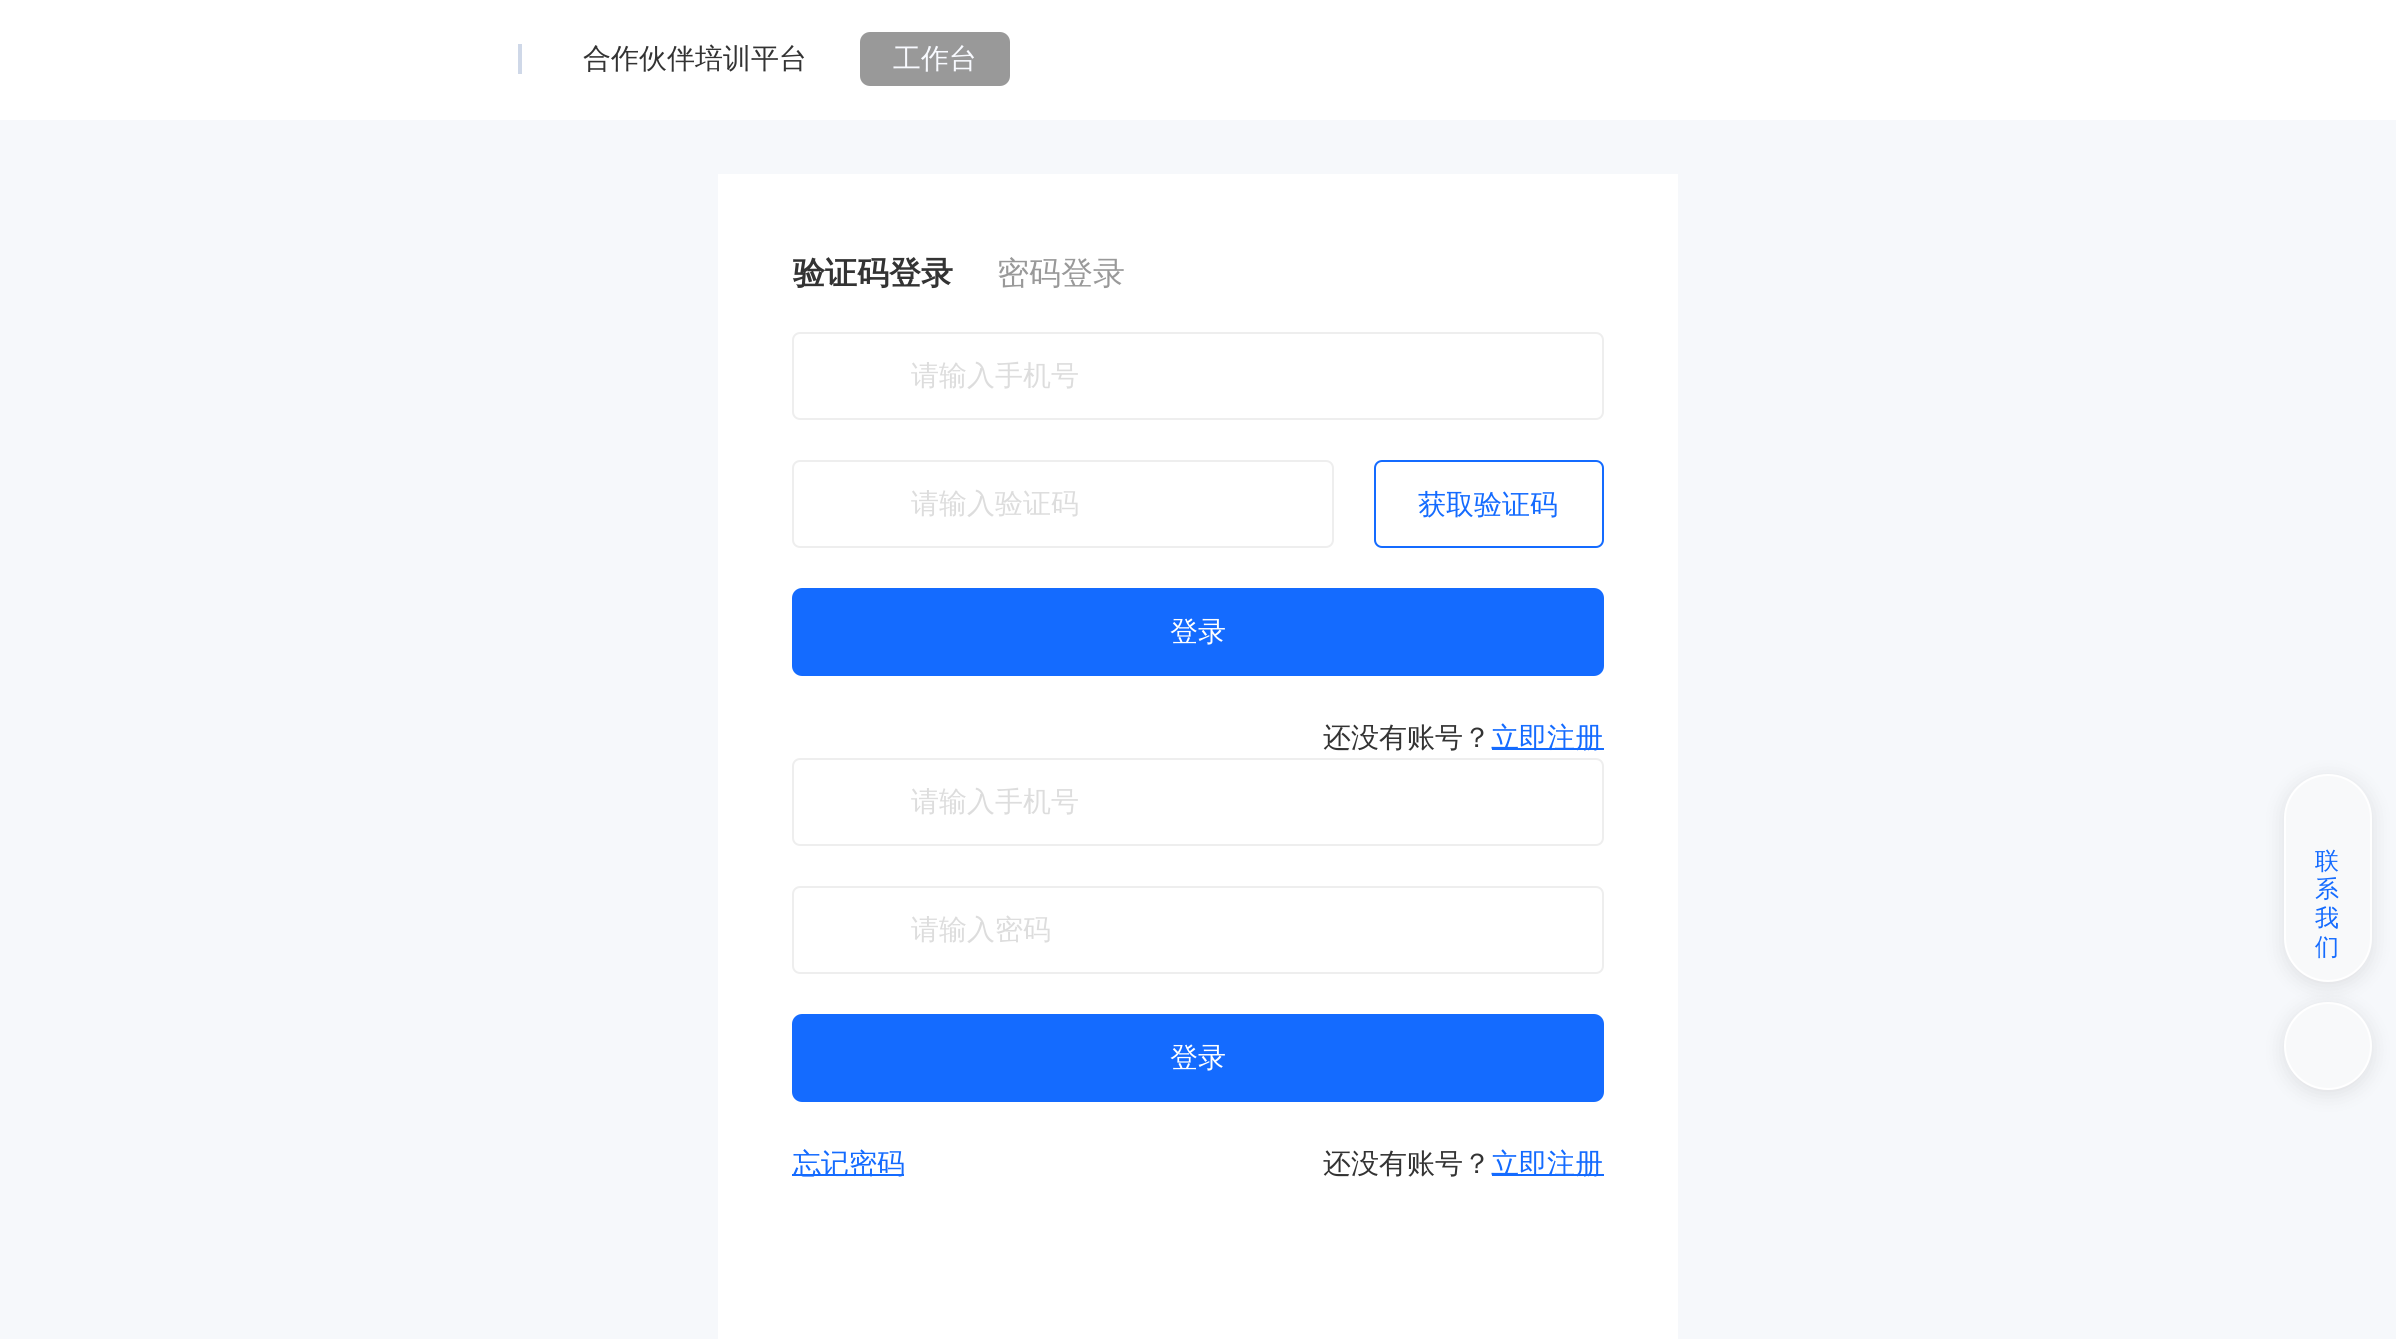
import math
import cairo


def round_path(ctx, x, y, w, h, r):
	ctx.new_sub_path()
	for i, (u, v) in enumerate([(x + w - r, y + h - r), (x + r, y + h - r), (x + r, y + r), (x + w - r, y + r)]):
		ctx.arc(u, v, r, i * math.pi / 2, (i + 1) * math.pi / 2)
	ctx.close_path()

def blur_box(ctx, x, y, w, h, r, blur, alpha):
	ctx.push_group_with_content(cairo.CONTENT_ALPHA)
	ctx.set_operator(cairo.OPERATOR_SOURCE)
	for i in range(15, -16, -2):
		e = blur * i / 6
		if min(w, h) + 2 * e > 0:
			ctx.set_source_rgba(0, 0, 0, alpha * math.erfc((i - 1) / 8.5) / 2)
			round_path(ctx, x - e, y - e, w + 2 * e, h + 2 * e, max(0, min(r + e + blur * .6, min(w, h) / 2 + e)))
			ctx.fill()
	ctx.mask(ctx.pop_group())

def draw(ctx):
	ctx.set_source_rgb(0.961, 0.969, 0.984)
	ctx.paint()
	ctx.set_source_rgb(1, 1, 1)
	ctx.rectangle(0, 0, 2396, 120)
	ctx.fill()
	ctx.set_source_rgb(0.812, 0.847, 0.91)
	ctx.rectangle(518, 44, 4, 30)
	ctx.fill()
	ctx.select_font_face('WenQuanYi Zen Hei Medium')
	ctx.set_font_size(28)
	ctx.set_source_rgb(0.2, 0.2, 0.2)
	ctx.move_to(583, 68)
	ctx.show_text('合作伙伴培训平台')
	ctx.set_source_rgb(0.6, 0.6, 0.6)
	round_path(ctx, 860, 32, 150, 54, 10)
	ctx.fill()
	ctx.set_source_rgb(0.969, 0.98, 1)
	ctx.move_to(893, 68)
	ctx.show_text('工作台')
	ctx.set_source_rgb(1, 1, 1)
	ctx.rectangle(718, 174, 960, 1165)
	ctx.fill()
	ctx.select_font_face('WenQuanYi Zen Hei', cairo.FONT_SLANT_NORMAL, cairo.FONT_WEIGHT_BOLD)
	ctx.set_font_size(32)
	ctx.set_source_rgb(0.2, 0.2, 0.2)
	ctx.move_to(793, 284)
	ctx.show_text('验证码登录')
	ctx.select_font_face('WenQuanYi Zen Hei Medium')
	ctx.set_source_rgb(0.6, 0.6, 0.6)
	ctx.move_to(997, 284)
	ctx.show_text('密码登录')
	round_path(ctx, 793, 333, 810, 86, 7)
	ctx.set_source_rgb(0.933, 0.933, 0.933)
	ctx.stroke()
	ctx.set_font_size(28)
	ctx.set_source_rgb(0.867, 0.867, 0.867)
	ctx.move_to(911, 385)
	ctx.show_text('请输入手机号')
	round_path(ctx, 793, 461, 540, 86, 7)
	ctx.set_source_rgb(0.933, 0.933, 0.933)
	ctx.stroke()
	ctx.set_source_rgb(0.867, 0.867, 0.867)
	ctx.move_to(911, 513)
	ctx.show_text('请输入验证码')
	round_path(ctx, 1375, 461, 228, 86, 7)
	ctx.set_source_rgb(0.082, 0.42, 1)
	ctx.stroke()
	ctx.move_to(1418, 514)
	ctx.show_text('获取验证码')
	round_path(ctx, 792, 588, 812, 88, 10)
	ctx.fill()
	ctx.set_source_rgb(1, 1, 1)
	ctx.move_to(1170, 641)
	ctx.show_text('登录')
	ctx.set_source_rgb(0.2, 0.2, 0.2)
	ctx.move_to(1323, 747)
	ctx.show_text('还没有账号？')
	ctx.set_source_rgb(0.082, 0.42, 1)
	ctx.rectangle(1492, 748, 112, 2)
	ctx.fill()
	ctx.move_to(1491, 747)
	ctx.show_text('立即注册')
	round_path(ctx, 793, 759, 810, 86, 7)
	ctx.set_source_rgb(0.933, 0.933, 0.933)
	ctx.stroke()
	ctx.set_source_rgb(0.867, 0.867, 0.867)
	ctx.move_to(911, 811)
	ctx.show_text('请输入手机号')
	round_path(ctx, 793, 887, 810, 86, 7)
	ctx.set_source_rgb(0.933, 0.933, 0.933)
	ctx.stroke()
	ctx.set_source_rgb(0.867, 0.867, 0.867)
	ctx.move_to(911, 939)
	ctx.show_text('请输入密码')
	ctx.set_source_rgb(0.082, 0.42, 1)
	round_path(ctx, 792, 1014, 812, 88, 10)
	ctx.fill()
	ctx.set_source_rgb(1, 1, 1)
	ctx.move_to(1170, 1067)
	ctx.show_text('登录')
	ctx.set_source_rgb(0.082, 0.42, 1)
	ctx.rectangle(792, 1174, 112, 2)
	ctx.fill()
	ctx.move_to(793, 1173)
	ctx.show_text('忘记密码')
	ctx.set_source_rgb(0.2, 0.2, 0.2)
	ctx.move_to(1323, 1173)
	ctx.show_text('还没有账号？')
	ctx.set_source_rgb(0.082, 0.42, 1)
	ctx.rectangle(1492, 1174, 112, 2)
	ctx.fill()
	ctx.move_to(1491, 1173)
	ctx.show_text('立即注册')
	ctx.set_source_rgb(0, 0, 0)
	blur_box(ctx, 2284, 1006, 88, 88, 44, 10, 0.1)
	ctx.set_source_rgb(0.969, 0.973, 0.98)
	ctx.arc(2328, 1046, 43, 0, 2 * math.pi)
	ctx.fill_preserve()
	ctx.set_source_rgb(1, 1, 1)
	ctx.stroke()
	ctx.set_source_rgb(0, 0, 0)
	blur_box(ctx, 2284, 778, 88, 208, 44, 10, 0.1)
	ctx.set_source_rgb(0.969, 0.973, 0.98)
	round_path(ctx, 2285, 775, 86, 206, 43)
	ctx.fill_preserve()
	ctx.set_source_rgb(1, 1, 1)
	ctx.stroke()
	ctx.set_font_size(24)
	ctx.set_source_rgb(0.082, 0.42, 1)
	for x, y, s in [
		(2315, 869, '联'),
		(2315, 897, '系'),
		(2315, 926, '我'),
		(2315, 955, '们'),
	]:
		ctx.move_to(x, y)
		ctx.show_text(s)


surface = cairo.ImageSurface(cairo.FORMAT_RGB24, 2396, 1339)
ctx = cairo.Context(surface)
options = cairo.FontOptions()
options.set_hint_metrics(cairo.HINT_METRICS_OFF)
options.set_hint_style(cairo.HINT_STYLE_NONE)
ctx.set_font_options(options)
ctx.set_miter_limit(4)
draw(ctx)
surface.write_to_png('image.png')
